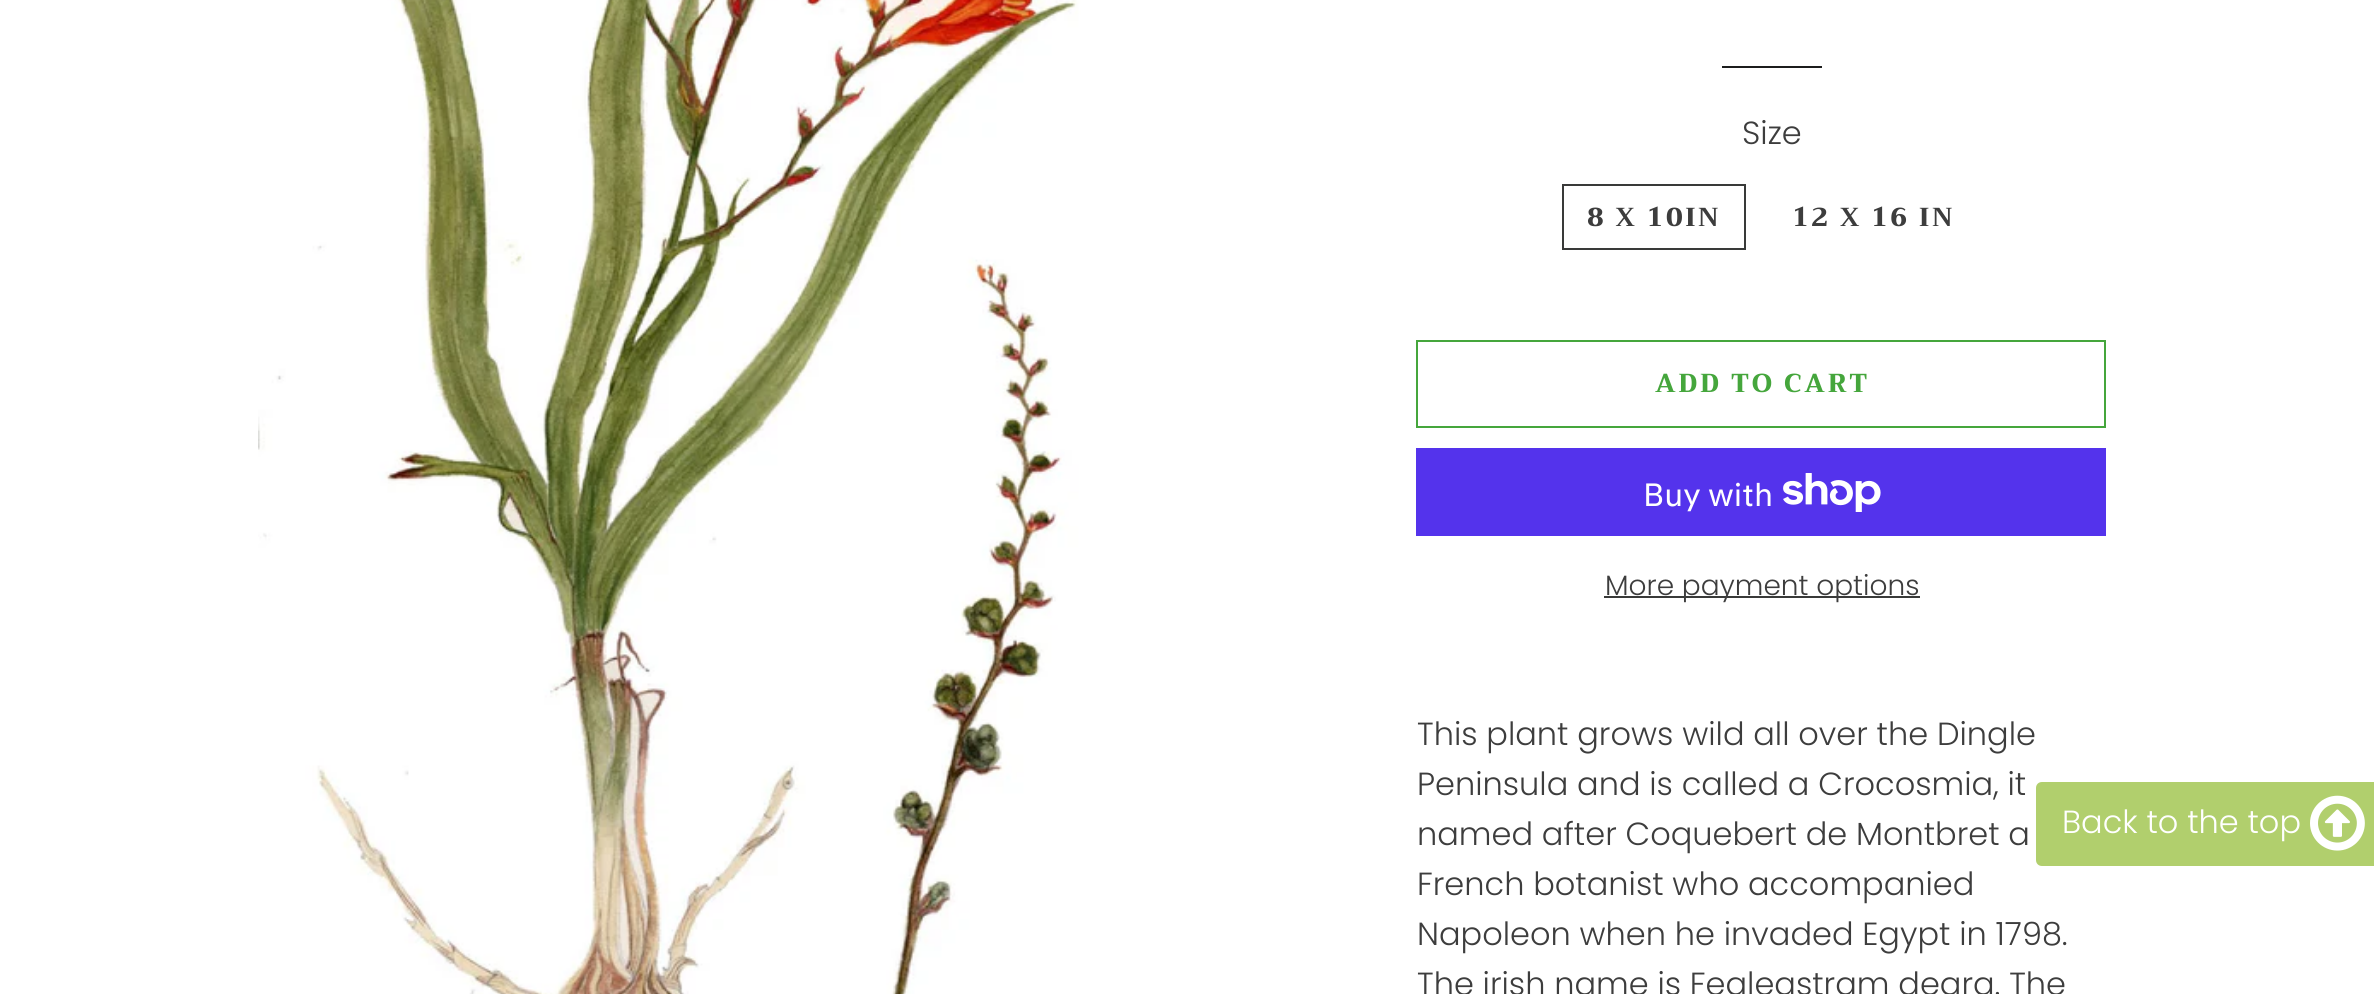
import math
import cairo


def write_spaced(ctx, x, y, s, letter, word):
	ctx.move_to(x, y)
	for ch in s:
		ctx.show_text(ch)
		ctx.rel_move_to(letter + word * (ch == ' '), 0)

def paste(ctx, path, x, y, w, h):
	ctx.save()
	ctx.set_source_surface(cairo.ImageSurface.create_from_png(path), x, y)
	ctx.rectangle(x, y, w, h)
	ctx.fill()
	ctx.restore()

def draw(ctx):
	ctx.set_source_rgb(1, 1, 1)
	ctx.paint()
	paste(ctx, 'media/1.png', 258, 0, 1008, 994)
	ctx.set_source_rgb(0.11, 0.114, 0.114)
	ctx.rectangle(1722, 66, 100, 2)
	ctx.fill()
	ctx.select_font_face('Poppins Light')
	ctx.set_font_size(32)
	ctx.set_source_rgb(0.239, 0.239, 0.239)
	ctx.move_to(1742, 144)
	ctx.show_text('Size')
	ctx.rectangle(1563, 185, 182, 64)
	ctx.set_source_rgb(0.224, 0.227, 0.224)
	ctx.stroke()
	ctx.select_font_face('Trirong ExtraBold')
	ctx.set_font_size(26)
	ctx.set_source_rgb(0.239, 0.239, 0.239)
	write_spaced(ctx, 1587, 226, '8 X 10IN', 2.6, 0)
	write_spaced(ctx, 1792, 226, '12 X 16 IN', 2.6, 0)
	ctx.rectangle(1417, 341, 688, 86)
	ctx.set_source_rgb(0.271, 0.651, 0.235)
	ctx.stroke()
	write_spaced(ctx, 1655, 392, 'ADD TO CART', 2.6, 0)
	ctx.set_source_rgb(0.329, 0.2, 0.922)
	ctx.rectangle(1416, 448, 690, 88)
	ctx.fill()
	ctx.select_font_face('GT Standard')
	ctx.set_font_size(32)
	ctx.set_source_rgb(1, 1, 1)
	ctx.move_to(1643, 506)
	ctx.show_text('Buy with')
	paste(ctx, 'media/2.png', 1783, 473, 98, 39)
	ctx.set_source_rgb(0.224, 0.227, 0.224)
	ctx.rectangle(1604, 596, 316, 2)
	ctx.fill()
	ctx.select_font_face('Poppins Light')
	ctx.set_font_size(28)
	ctx.set_source_rgb(0.239, 0.239, 0.239)
	ctx.move_to(1605, 595)
	ctx.show_text('More payment options')
	ctx.set_font_size(32)
	for x, y, s in [
		(1417, 745, 'This plant grows wild all over the Dingle'),
		(1417, 795, 'Peninsula and is called a Crocosmia, it'),
		(1417, 845, 'named after Coquebert de Montbret a'),
		(1417, 895, 'French botanist who accompanied'),
		(1417, 945, 'Napoleon when he invaded Egypt in 1798.'),
		(1417, 995, 'The irish name is Fealeastram dearg. The'),
	]:
		ctx.move_to(x, y)
		ctx.show_text(s)
	ctx.set_source_rgb(0.694, 0.812, 0.427)
	ctx.new_path()
	ctx.move_to(2042, 782)
	ctx.line_to(2374, 782)
	ctx.line_to(2374, 866)
	ctx.line_to(2042, 866)
	ctx.curve_to(2038.5, 866, 2036, 863.5, 2036, 860)
	ctx.line_to(2036, 788)
	ctx.curve_to(2036, 784.5, 2038.5, 782, 2042, 782)
	ctx.close_path()
	ctx.fill()
	ctx.set_source_rgb(1, 1, 1)
	ctx.move_to(2062, 833)
	ctx.show_text('Back to the top')
	paste(ctx, 'media/3.png', 2310, 795, 55, 56)


surface = cairo.ImageSurface(cairo.FORMAT_RGB24, 2374, 994)
ctx = cairo.Context(surface)
options = cairo.FontOptions()
options.set_hint_metrics(cairo.HINT_METRICS_OFF)
options.set_hint_style(cairo.HINT_STYLE_NONE)
ctx.set_font_options(options)
ctx.set_miter_limit(4)
draw(ctx)
surface.write_to_png('image.png')
